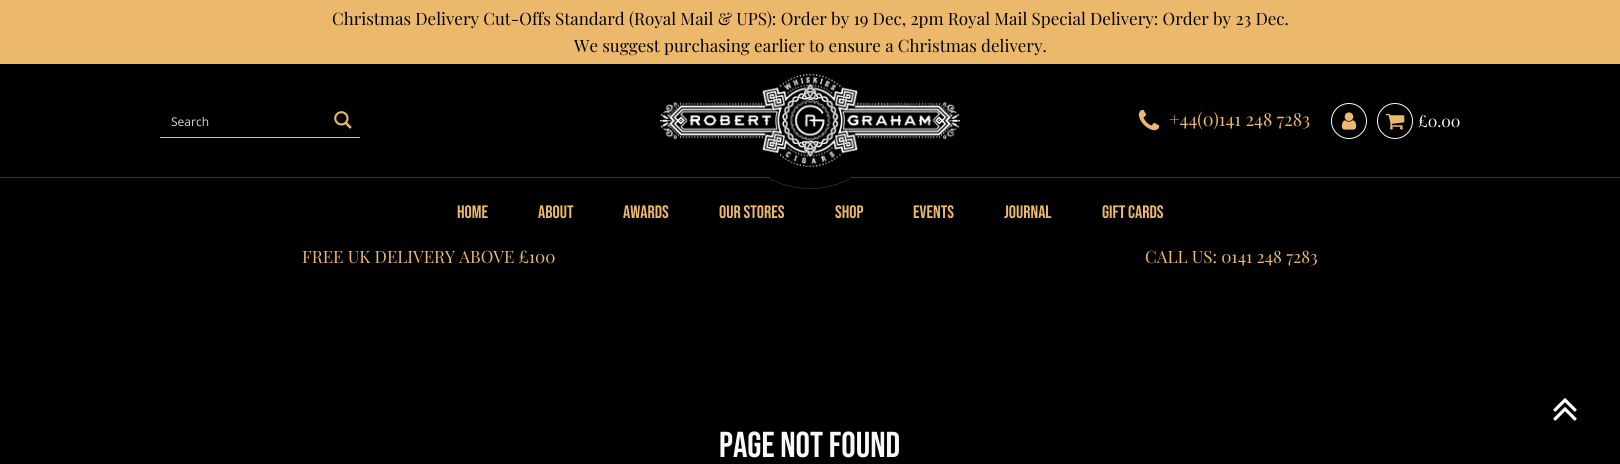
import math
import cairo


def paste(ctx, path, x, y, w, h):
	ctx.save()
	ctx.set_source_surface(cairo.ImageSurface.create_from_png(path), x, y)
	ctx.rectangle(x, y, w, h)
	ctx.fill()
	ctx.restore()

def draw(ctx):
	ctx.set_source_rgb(0, 0, 0)
	ctx.paint()
	ctx.set_source_rgb(0.925, 0.725, 0.424)
	ctx.rectangle(0, 0, 1620, 64)
	ctx.fill()
	ctx.select_font_face('Playfair Display')
	ctx.set_font_size(17)
	ctx.set_source_rgb(0, 0, 0)
	ctx.move_to(332, 25)
	ctx.show_text('Christmas Delivery Cut-Offs Standard (Royal Mail & UPS): Order by 19 Dec, 2pm Royal Mail Special Delivery: Order by 23 Dec.')
	ctx.move_to(574, 52)
	ctx.show_text('We suggest purchasing earlier to ensure a Christmas delivery.')
	ctx.set_source_rgb(0.2, 0.196, 0.196)
	ctx.rectangle(0, 177, 1620, 1)
	ctx.fill()
	ctx.set_source_rgb(0.925, 0.725, 0.424)
	ctx.rectangle(160, 137, 200, 1)
	ctx.fill()
	ctx.select_font_face('Open Sans')
	ctx.set_font_size(12)
	ctx.set_source_rgb(0.851, 0.851, 0.851)
	ctx.move_to(171, 126)
	ctx.show_text('Search')
	paste(ctx, 'media/1.png', 334, 111, 18, 18)
	paste(ctx, 'media/2.png', 660, 74, 300, 93)
	paste(ctx, 'media/3.png', 1138, 109, 22, 22)
	ctx.select_font_face('Playfair Display')
	ctx.set_font_size(18)
	ctx.set_source_rgb(0.925, 0.725, 0.424)
	ctx.move_to(1169, 126)
	ctx.show_text('+44(0)141 248 7283')
	ctx.new_path()
	ctx.arc(1349, 121, 17.5, 0, 2 * math.pi)
	ctx.set_source_rgb(0.976, 0.976, 0.98)
	ctx.set_line_width(1)
	ctx.stroke()
	paste(ctx, 'media/4.png', 1341, 112, 16, 18)
	ctx.arc(1395, 121, 17.5, 0, 2 * math.pi)
	ctx.stroke()
	paste(ctx, 'media/5.png', 1385, 113, 20, 17)
	ctx.set_font_size(16)
	ctx.set_source_rgb(1, 1, 1)
	ctx.move_to(1418, 127)
	ctx.show_text('£0.00')
	paste(ctx, 'media/6.png', 770, 177, 80, 12)
	ctx.select_font_face('Bebas Neue')
	ctx.set_font_size(18)
	ctx.set_source_rgb(0.925, 0.725, 0.424)
	for x, y, s in [
		(457, 218, 'Home'),
		(538, 218, 'About'),
		(623, 218, 'Awards'),
		(719, 218, 'Our Stores'),
		(835, 218, 'Shop'),
		(913, 218, 'Events'),
		(1004, 218, 'Journal'),
		(1102, 218, 'Gift Cards'),
	]:
		ctx.move_to(x, y)
		ctx.show_text(s)
	ctx.select_font_face('Playfair Display')
	ctx.set_font_size(17)
	ctx.move_to(302, 263)
	ctx.show_text('FREE UK DELIVERY ABOVE £100')
	ctx.move_to(1145, 263)
	ctx.show_text('CALL US: 0141 248 7283')
	paste(ctx, 'media/7.png', 1553, 398, 24, 23)
	ctx.select_font_face('Bebas Neue')
	ctx.set_font_size(36)
	ctx.set_source_rgb(0.976, 0.976, 0.98)
	ctx.move_to(719, 457)
	ctx.show_text('Page not found')


surface = cairo.ImageSurface(cairo.FORMAT_RGB24, 1620, 464)
ctx = cairo.Context(surface)
options = cairo.FontOptions()
options.set_hint_metrics(cairo.HINT_METRICS_OFF)
options.set_hint_style(cairo.HINT_STYLE_NONE)
ctx.set_font_options(options)
ctx.set_miter_limit(4)
draw(ctx)
surface.write_to_png('image.png')
